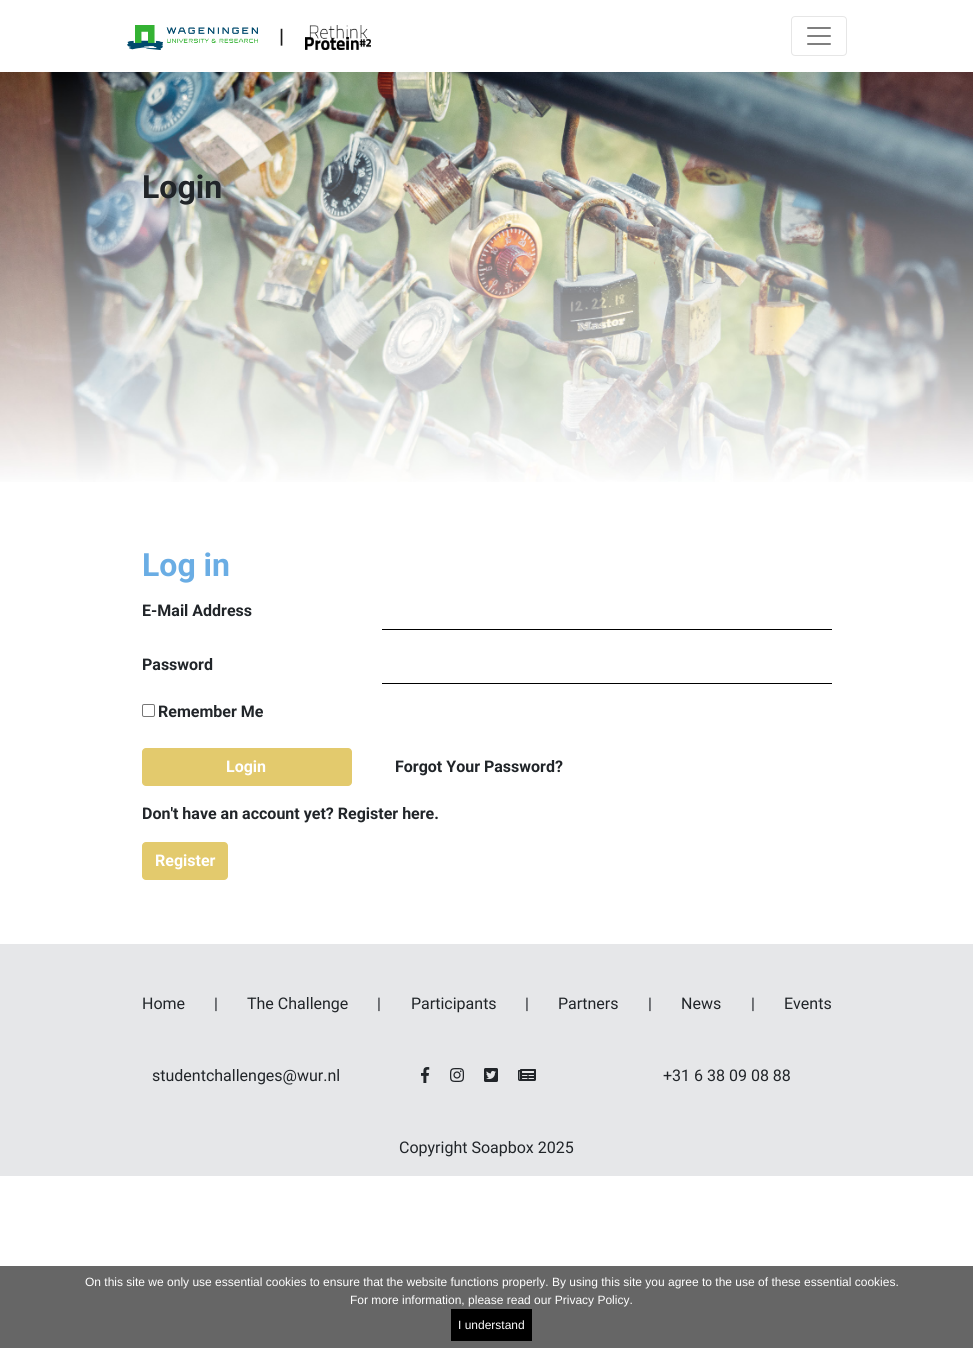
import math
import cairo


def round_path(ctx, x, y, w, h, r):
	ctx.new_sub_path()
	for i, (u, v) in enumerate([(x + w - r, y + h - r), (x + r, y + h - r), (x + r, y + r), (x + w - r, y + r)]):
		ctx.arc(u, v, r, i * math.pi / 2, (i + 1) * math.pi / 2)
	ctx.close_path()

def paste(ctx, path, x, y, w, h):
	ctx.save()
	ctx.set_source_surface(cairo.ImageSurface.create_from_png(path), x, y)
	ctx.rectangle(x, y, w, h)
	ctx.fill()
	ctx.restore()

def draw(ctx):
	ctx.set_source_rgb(1, 1, 1)
	ctx.paint()
	paste(ctx, 'media/1.png', 127, 25, 131, 25)
	ctx.select_font_face('Roboto', cairo.FONT_SLANT_NORMAL, cairo.FONT_WEIGHT_BOLD)
	ctx.set_font_size(20)
	ctx.set_source_rgb(0.102, 0.102, 0.102)
	ctx.move_to(279, 43)
	ctx.show_text('|')
	paste(ctx, 'media/2.png', 305, 25, 66, 25)
	round_path(ctx, 791.5, 16.5, 55, 39, 3.5)
	ctx.set_source_rgb(0.902, 0.902, 0.902)
	ctx.set_line_width(1)
	ctx.stroke()
	paste(ctx, 'media/3.png', 807, 27, 24, 18)
	paste(ctx, 'media/4.png', 0, 72, 973, 410)
	ctx.set_font_size(32)
	ctx.set_source_rgb(0.129, 0.145, 0.161)
	ctx.move_to(142, 198)
	ctx.show_text('Login')
	ctx.set_source_rgb(0.416, 0.678, 0.894)
	ctx.move_to(142, 576)
	ctx.show_text('Log in')
	ctx.set_font_size(16)
	ctx.set_source_rgb(0.129, 0.145, 0.161)
	ctx.move_to(142, 616)
	ctx.show_text('E-Mail Address')
	ctx.set_source_rgb(0, 0, 0)
	ctx.rectangle(382, 629, 450, 1)
	ctx.fill()
	ctx.set_source_rgb(0.129, 0.145, 0.161)
	ctx.move_to(142, 670)
	ctx.show_text('Password')
	ctx.set_source_rgb(0, 0, 0)
	ctx.rectangle(382, 683, 450, 1)
	ctx.fill()
	round_path(ctx, 142.5, 704.5, 12, 12, 1.5)
	ctx.set_source_rgb(0.463, 0.463, 0.463)
	ctx.stroke()
	ctx.set_source_rgb(0.129, 0.145, 0.161)
	ctx.move_to(158, 717)
	ctx.show_text('Remember Me')
	ctx.set_source_rgb(0.89, 0.792, 0.427)
	round_path(ctx, 142, 748, 210, 38, 4)
	ctx.fill()
	ctx.set_source_rgb(1, 1, 1)
	ctx.move_to(226, 772)
	ctx.show_text('Login')
	ctx.set_source_rgb(0.129, 0.145, 0.161)
	ctx.move_to(395, 772)
	ctx.show_text('Forgot Your Password?')
	ctx.move_to(142, 819)
	ctx.show_text('Don\'t have an account yet? Register here.')
	ctx.set_source_rgb(0.89, 0.792, 0.427)
	round_path(ctx, 142, 842, 86, 38, 4)
	ctx.fill()
	ctx.set_source_rgb(1, 1, 1)
	ctx.move_to(155, 866)
	ctx.show_text('Register')
	ctx.set_source_rgb(0.902, 0.906, 0.914)
	ctx.rectangle(0, 944, 973, 232)
	ctx.fill()
	ctx.select_font_face('Roboto')
	ctx.set_source_rgb(0.129, 0.145, 0.161)
	for x, y, s in [
		(142, 1009, 'Home'),
		(214, 1009, '|'),
		(247, 1009, 'The Challenge'),
		(377, 1009, '|'),
		(411, 1009, 'Participants'),
		(525, 1009, '|'),
		(558, 1009, 'Partners'),
		(648, 1009, '|'),
		(681, 1009, 'News'),
		(751, 1009, '|'),
		(784, 1009, 'Events'),
		(152, 1081, 'studentchallenges@wur.nl'),
	]:
		ctx.move_to(x, y)
		ctx.show_text(s)
	paste(ctx, 'media/5.png', 421, 1067, 9, 16)
	paste(ctx, 'media/6.png', 450, 1068, 14, 14)
	paste(ctx, 'media/7.png', 484, 1068, 14, 14)
	paste(ctx, 'media/8.png', 518, 1069, 18, 12)
	ctx.move_to(663, 1081)
	ctx.show_text('+31 6 38 09 08 88')
	ctx.move_to(399, 1153)
	ctx.show_text('Copyright Soapbox 2025')
	ctx.set_source_rgb(0.4, 0.4, 0.4)
	ctx.rectangle(0, 1266, 973, 82)
	ctx.fill()
	ctx.select_font_face('Liberation Sans')
	ctx.set_font_size(12)
	ctx.set_source_rgb(1, 1, 1)
	ctx.move_to(85, 1286)
	ctx.show_text('On this site we only use essential cookies to ensure that the website functions properly. By using this site you agree to the use of these essential cookies.')
	ctx.move_to(350, 1304)
	ctx.show_text('For more information, please read our Privacy Policy.')
	ctx.set_source_rgb(0, 0, 0)
	ctx.rectangle(451, 1309, 81, 32)
	ctx.fill()
	ctx.set_source_rgb(1, 1, 1)
	ctx.move_to(458, 1329)
	ctx.show_text('I understand')


surface = cairo.ImageSurface(cairo.FORMAT_RGB24, 973, 1348)
ctx = cairo.Context(surface)
options = cairo.FontOptions()
options.set_hint_metrics(cairo.HINT_METRICS_OFF)
options.set_hint_style(cairo.HINT_STYLE_NONE)
ctx.set_font_options(options)
ctx.set_miter_limit(4)
draw(ctx)
surface.write_to_png('image.png')
